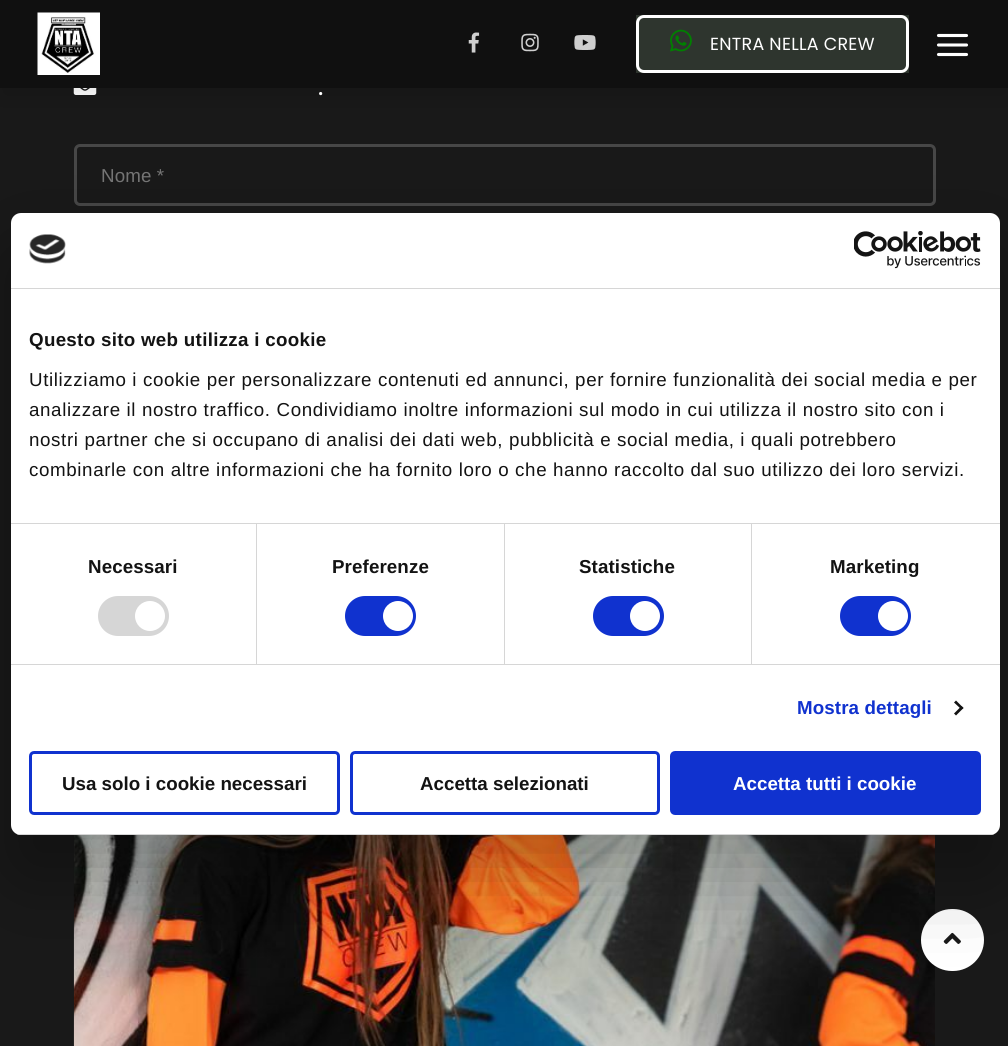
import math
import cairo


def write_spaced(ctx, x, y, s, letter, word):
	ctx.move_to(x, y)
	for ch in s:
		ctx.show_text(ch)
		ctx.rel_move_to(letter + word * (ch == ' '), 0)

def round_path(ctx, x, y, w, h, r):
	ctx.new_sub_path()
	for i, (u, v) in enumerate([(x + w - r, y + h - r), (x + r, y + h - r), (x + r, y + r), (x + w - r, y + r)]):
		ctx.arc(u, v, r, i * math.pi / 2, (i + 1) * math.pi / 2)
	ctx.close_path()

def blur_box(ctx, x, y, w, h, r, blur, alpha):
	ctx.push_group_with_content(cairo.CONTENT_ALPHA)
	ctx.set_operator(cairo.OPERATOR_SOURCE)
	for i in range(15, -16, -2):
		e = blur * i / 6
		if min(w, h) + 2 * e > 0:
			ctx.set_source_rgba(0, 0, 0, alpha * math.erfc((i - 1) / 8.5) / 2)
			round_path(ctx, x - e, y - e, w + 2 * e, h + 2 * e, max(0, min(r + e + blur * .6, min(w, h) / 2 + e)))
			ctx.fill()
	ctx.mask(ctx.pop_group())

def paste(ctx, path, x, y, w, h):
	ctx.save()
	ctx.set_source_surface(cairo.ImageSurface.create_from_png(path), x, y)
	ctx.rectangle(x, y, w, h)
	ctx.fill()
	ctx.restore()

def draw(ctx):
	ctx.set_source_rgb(0.098, 0.098, 0.098)
	ctx.paint()
	paste(ctx, 'media/6.png', 73, 88, 24, 7)
	ctx.set_source_rgb(0, 0, 0)
	blur_box(ctx, 0, 10, 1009, 88, 0, 12.5, 0.1)
	ctx.set_source_rgb(0.063, 0.063, 0.063)
	ctx.rectangle(0, 0, 1008, 88)
	ctx.fill()
	paste(ctx, 'media/1.png', 37, 12, 63, 63)
	paste(ctx, 'media/2.png', 468, 32, 12, 21)
	paste(ctx, 'media/3.png', 521, 33, 18, 19)
	paste(ctx, 'media/4.png', 574, 35, 22, 15)
	ctx.set_source_rgb(0.18, 0.208, 0.18)
	ctx.rectangle(636, 15, 273, 58)
	ctx.fill()
	round_path(ctx, 637.5, 16.5, 270, 55, 6.5)
	ctx.set_source_rgb(1, 1, 1)
	ctx.set_line_width(3)
	ctx.stroke()
	paste(ctx, 'media/5.png', 670, 29, 22, 23)
	ctx.select_font_face('Poppins')
	ctx.set_font_size(17.5)
	write_spaced(ctx, 710, 50, 'ENTRA NELLA CREW', 0.25, 0)
	ctx.new_path()
	ctx.move_to(938.5, 45)
	ctx.line_to(966.5, 45)
	ctx.move_to(938.5, 35.5)
	ctx.line_to(966.5, 35.5)
	ctx.move_to(938.5, 54.5)
	ctx.line_to(966.5, 54.5)
	ctx.set_line_width(3.1)
	ctx.set_line_cap(cairo.LINE_CAP_ROUND)
	ctx.set_line_join(cairo.LINE_JOIN_ROUND)
	ctx.stroke()
	ctx.select_font_face('Poppins Medium')
	ctx.set_font_size(22)
	ctx.move_to(318, 95)
	ctx.show_text('.')
	round_path(ctx, 75.5, 145.5, 859, 59, 4.5)
	ctx.set_source_rgb(0.278, 0.278, 0.278)
	ctx.set_line_width(3)
	ctx.set_line_cap(cairo.LINE_CAP_BUTT)
	ctx.set_line_join(cairo.LINE_JOIN_MITER)
	ctx.stroke()
	ctx.select_font_face('Liberation Sans')
	ctx.set_font_size(18.75)
	ctx.set_source_rgb(0.459, 0.459, 0.459)
	write_spaced(ctx, 101, 182, 'Nome *', 0.1, 0)
	paste(ctx, 'media/7.png', 73, 835, 862, 211)
	ctx.set_source_rgb(1, 1, 1)
	round_path(ctx, 921, 909, 63, 62, 31)
	ctx.fill()
	paste(ctx, 'media/10.png', 943, 932, 18, 12)
	ctx.set_source_rgb(0, 0, 0)
	blur_box(ctx, 11, 253, 989, 622, 10, 42.5, 0.3)
	ctx.set_source_rgb(1, 1, 1)
	round_path(ctx, 11, 213, 989, 622, 10)
	ctx.fill()
	ctx.set_source_rgb(0.839, 0.839, 0.839)
	ctx.rectangle(11, 288, 989, 1)
	ctx.fill()
	paste(ctx, 'media/8.png', 29, 234, 37, 30)
	paste(ctx, 'media/9.png', 854, 231, 127, 38)
	ctx.rectangle(11, 523, 989, 1)
	ctx.fill()
	ctx.select_font_face('Liberation Sans', cairo.FONT_SLANT_NORMAL, cairo.FONT_WEIGHT_BOLD)
	ctx.set_source_rgb(0.078, 0.078, 0.078)
	write_spaced(ctx, 29, 346, 'Questo sito web utilizza i cookie', 0.3, 0)
	ctx.select_font_face('Liberation Sans')
	for x, y, s in [
		(29, 386, 'Utilizziamo i cookie per personalizzare contenuti ed annunci, per fornire funzionalità dei social media e per'),
		(29, 416, 'analizzare il nostro traffico. Condividiamo inoltre informazioni sul modo in cui utilizza il nostro sito con i'),
		(29, 446, 'nostri partner che si occupano di analisi dei dati web, pubblicità e social media, i quali potrebbero'),
		(29, 476, 'combinarle con altre informazioni che ha fornito loro o che hanno raccolto dal suo utilizzo dei loro servizi.'),
	]:
		write_spaced(ctx, x, y, s, 0.62, 0)
	ctx.set_source_rgb(0.839, 0.839, 0.839)
	ctx.rectangle(11, 664, 989, 1)
	ctx.fill()
	ctx.rectangle(256, 524, 1, 140)
	ctx.fill()
	ctx.select_font_face('Liberation Sans', cairo.FONT_SLANT_NORMAL, cairo.FONT_WEIGHT_BOLD)
	ctx.set_source_rgb(0.078, 0.078, 0.078)
	write_spaced(ctx, 88, 573, 'Necessari', 0.1, 0)
	ctx.set_source_rgb(0.839, 0.839, 0.839)
	round_path(ctx, 98, 596, 71, 40, 20)
	ctx.fill()
	ctx.set_source_rgb(1, 1, 1)
	ctx.arc(150, 616, 15, 0, 2 * math.pi)
	ctx.fill()
	ctx.set_source_rgb(0.839, 0.839, 0.839)
	ctx.rectangle(504, 524, 1, 140)
	ctx.fill()
	ctx.set_source_rgb(0.078, 0.078, 0.078)
	write_spaced(ctx, 332, 573, 'Preferenze', 0.1, 0)
	ctx.set_source_rgb(0.063, 0.196, 0.812)
	round_path(ctx, 345, 596, 71, 40, 20)
	ctx.fill()
	ctx.set_source_rgb(1, 1, 1)
	ctx.arc(398, 616, 15, 0, 2 * math.pi)
	ctx.fill()
	ctx.set_source_rgb(0.839, 0.839, 0.839)
	ctx.rectangle(751, 524, 1, 140)
	ctx.fill()
	ctx.set_source_rgb(0.078, 0.078, 0.078)
	write_spaced(ctx, 579, 573, 'Statistiche', 0.1, 0)
	ctx.set_source_rgb(0.063, 0.196, 0.812)
	round_path(ctx, 593, 596, 71, 40, 20)
	ctx.fill()
	ctx.set_source_rgb(1, 1, 1)
	ctx.arc(645, 616, 15, 0, 2 * math.pi)
	ctx.fill()
	ctx.set_source_rgb(0.078, 0.078, 0.078)
	write_spaced(ctx, 830, 573, 'Marketing', 0.1, 0)
	ctx.set_source_rgb(0.063, 0.196, 0.812)
	round_path(ctx, 840, 596, 71, 40, 20)
	ctx.fill()
	ctx.set_source_rgb(1, 1, 1)
	ctx.arc(893, 616, 15, 0, 2 * math.pi)
	ctx.fill()
	ctx.set_source_rgb(0.063, 0.196, 0.812)
	write_spaced(ctx, 797, 714, 'Mostra dettagli', 0.1, 0)
	ctx.set_source_rgb(0.078, 0.078, 0.078)
	ctx.new_path()
	ctx.move_to(956, 700.5)
	ctx.line_to(963.5, 708)
	ctx.line_to(961.5, 709.5)
	ctx.line_to(954, 702.5)
	ctx.close_path()
	ctx.fill()
	ctx.new_path()
	ctx.move_to(961.5, 706)
	ctx.line_to(963.5, 708)
	ctx.line_to(956, 715.5)
	ctx.line_to(954, 713.5)
	ctx.close_path()
	ctx.fill()
	ctx.save()
	round_path(ctx, 11, 213, 989, 622, 10)
	ctx.clip()
	ctx.set_source_rgb(0.839, 0.839, 0.839)
	ctx.rectangle(11, 834, 989, 1)
	ctx.fill()
	ctx.restore()
	round_path(ctx, 30.5, 752.5, 308, 61, 3.5)
	ctx.set_source_rgb(0.063, 0.196, 0.812)
	ctx.stroke()
	ctx.set_source_rgb(0.078, 0.078, 0.078)
	ctx.move_to(62, 790)
	ctx.show_text('Usa solo i cookie necessari')
	round_path(ctx, 351.5, 752.5, 307, 61, 3.5)
	ctx.set_source_rgb(0.063, 0.196, 0.812)
	ctx.stroke()
	ctx.set_source_rgb(0.078, 0.078, 0.078)
	ctx.move_to(420, 790)
	ctx.show_text('Accetta selezionati')
	ctx.set_source_rgb(0.063, 0.196, 0.812)
	round_path(ctx, 671.5, 752.5, 308, 61, 3.5)
	ctx.fill_preserve()
	ctx.stroke()
	ctx.set_source_rgb(1, 1, 1)
	ctx.move_to(733, 790)
	ctx.show_text('Accetta tutti i cookie')


surface = cairo.ImageSurface(cairo.FORMAT_RGB24, 1008, 1046)
ctx = cairo.Context(surface)
options = cairo.FontOptions()
options.set_hint_metrics(cairo.HINT_METRICS_OFF)
options.set_hint_style(cairo.HINT_STYLE_NONE)
ctx.set_font_options(options)
ctx.set_miter_limit(4)
draw(ctx)
surface.write_to_png('image.png')
